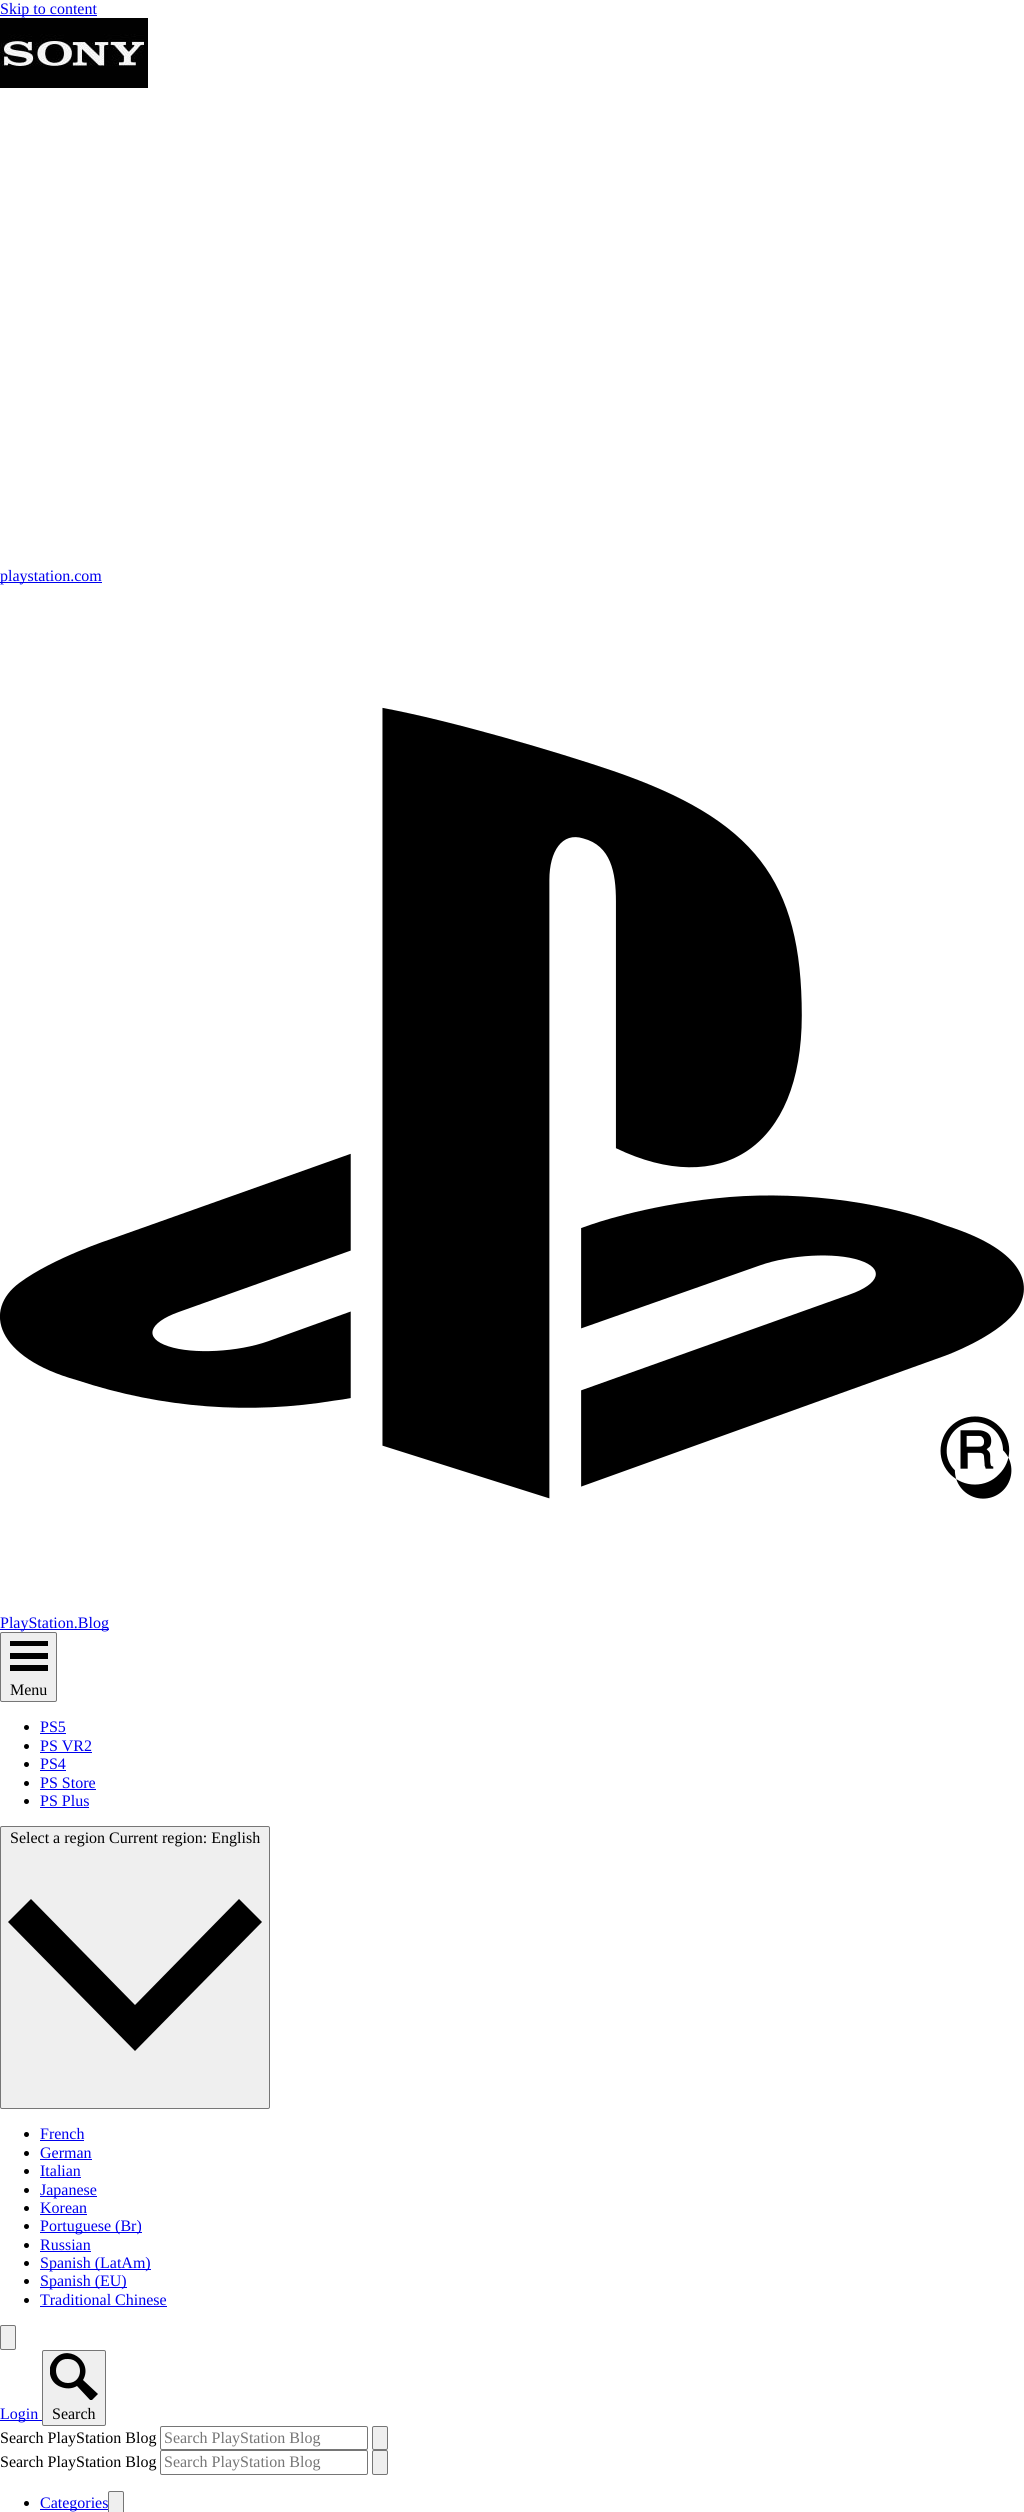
import math
import cairo


def round_path(ctx, x, y, w, h, r):
	ctx.new_sub_path()
	for i, (u, v) in enumerate([(x + w - r, y + h - r), (x + r, y + h - r), (x + r, y + r), (x + w - r, y + r)]):
		ctx.arc(u, v, r, i * math.pi / 2, (i + 1) * math.pi / 2)
	ctx.close_path()

def paste(ctx, path, x, y, w, h):
	ctx.save()
	ctx.set_source_surface(cairo.ImageSurface.create_from_png(path), x, y)
	ctx.rectangle(x, y, w, h)
	ctx.fill()
	ctx.restore()

def draw(ctx):
	ctx.set_source_rgb(1, 1, 1)
	ctx.paint()
	ctx.set_source_rgb(0, 0, 0.933)
	ctx.rectangle(0, 15, 97, 1)
	ctx.fill()
	ctx.select_font_face('Liberation Serif')
	ctx.set_font_size(16)
	ctx.move_to(0, 14)
	ctx.show_text('Skip to content')
	paste(ctx, 'media/1.png', 0, 18, 148, 70)
	ctx.rectangle(0, 582, 102, 1)
	ctx.fill()
	ctx.move_to(0, 581)
	ctx.show_text('playstation.com')
	paste(ctx, 'media/2.png', 0, 707, 1024, 792)
	ctx.rectangle(0, 1629, 109, 1)
	ctx.fill()
	ctx.move_to(0, 1628)
	ctx.show_text('PlayStation.Blog')
	ctx.set_source_rgb(0.937, 0.937, 0.937)
	round_path(ctx, 0.5, 1632.5, 56, 69, 1.5)
	ctx.fill_preserve()
	ctx.set_source_rgb(0.463, 0.463, 0.463)
	ctx.set_line_width(1)
	ctx.stroke()
	ctx.set_source_rgb(0, 0, 0)
	ctx.rectangle(10, 1641, 38, 5)
	ctx.rectangle(10, 1653, 38, 6)
	ctx.rectangle(10, 1665, 38, 6)
	ctx.fill()
	ctx.move_to(10, 1695)
	ctx.show_text('Menu')
	ctx.new_path()
	ctx.arc(26.5, 1727.5, 2.5, 0, 2 * math.pi)
	ctx.fill()
	ctx.set_source_rgb(0, 0, 0.933)
	ctx.move_to(40, 1732)
	ctx.show_text('PS5')
	ctx.rectangle(40, 1733, 26, 1)
	ctx.fill()
	ctx.set_source_rgb(0, 0, 0)
	ctx.arc(26.5, 1746.5, 2.5, 0, 2 * math.pi)
	ctx.fill()
	ctx.set_source_rgb(0, 0, 0.933)
	ctx.move_to(40, 1751)
	ctx.show_text('PS VR2')
	ctx.rectangle(40, 1752, 52, 1)
	ctx.fill()
	ctx.set_source_rgb(0, 0, 0)
	ctx.arc(26.5, 1764.5, 2.5, 0, 2 * math.pi)
	ctx.fill()
	ctx.set_source_rgb(0, 0, 0.933)
	ctx.move_to(40, 1769)
	ctx.show_text('PS4')
	ctx.rectangle(40, 1770, 26, 1)
	ctx.fill()
	ctx.set_source_rgb(0, 0, 0)
	ctx.arc(26.5, 1783.5, 2.5, 0, 2 * math.pi)
	ctx.fill()
	ctx.set_source_rgb(0, 0, 0.933)
	ctx.move_to(40, 1788)
	ctx.show_text('PS Store')
	ctx.rectangle(40, 1789, 56, 1)
	ctx.fill()
	ctx.set_source_rgb(0, 0, 0)
	ctx.arc(26.5, 1801.5, 2.5, 0, 2 * math.pi)
	ctx.fill()
	ctx.set_source_rgb(0, 0, 0.933)
	ctx.move_to(40, 1806)
	ctx.show_text('PS Plus')
	ctx.rectangle(40, 1807, 49, 1)
	ctx.fill()
	ctx.set_source_rgb(0.937, 0.937, 0.937)
	round_path(ctx, 0.5, 1826.5, 269, 282, 1.5)
	ctx.fill_preserve()
	ctx.set_source_rgb(0.463, 0.463, 0.463)
	ctx.stroke()
	ctx.set_source_rgb(0, 0, 0)
	ctx.move_to(10, 1843)
	ctx.show_text('Select a region Current region: English')
	ctx.set_fill_rule(cairo.FILL_RULE_EVEN_ODD)
	ctx.new_path()
	ctx.move_to(8, 1922)
	ctx.line_to(31, 1899)
	ctx.line_to(135, 2005)
	ctx.line_to(239, 1899)
	ctx.line_to(262, 1922)
	ctx.line_to(135, 2051)
	ctx.close_path()
	ctx.fill()
	ctx.arc(26.5, 2134.5, 2.5, 0, 2 * math.pi)
	ctx.fill()
	ctx.set_source_rgb(0, 0, 0.933)
	ctx.move_to(40, 2139)
	ctx.show_text('French')
	ctx.rectangle(40, 2140, 44, 1)
	ctx.fill()
	ctx.set_source_rgb(0, 0, 0)
	ctx.arc(26.5, 2153.5, 2.5, 0, 2 * math.pi)
	ctx.fill()
	ctx.set_source_rgb(0, 0, 0.933)
	ctx.move_to(40, 2158)
	ctx.show_text('German')
	ctx.rectangle(40, 2159, 52, 1)
	ctx.fill()
	ctx.set_source_rgb(0, 0, 0)
	ctx.arc(26.5, 2171.5, 2.5, 0, 2 * math.pi)
	ctx.fill()
	ctx.set_source_rgb(0, 0, 0.933)
	ctx.move_to(40, 2176)
	ctx.show_text('Italian')
	ctx.rectangle(40, 2177, 41, 1)
	ctx.fill()
	ctx.set_source_rgb(0, 0, 0)
	ctx.arc(26.5, 2190.5, 2.5, 0, 2 * math.pi)
	ctx.fill()
	ctx.set_source_rgb(0, 0, 0.933)
	ctx.rectangle(40, 2196, 57, 1)
	ctx.fill()
	ctx.move_to(40, 2195)
	ctx.show_text('Japanese')
	ctx.set_source_rgb(0, 0, 0)
	ctx.new_path()
	ctx.arc(26.5, 2208.5, 2.5, 0, 2 * math.pi)
	ctx.fill()
	ctx.set_source_rgb(0, 0, 0.933)
	ctx.move_to(40, 2213)
	ctx.show_text('Korean')
	ctx.rectangle(40, 2214, 47, 1)
	ctx.fill()
	ctx.set_source_rgb(0, 0, 0)
	ctx.arc(26.5, 2226.5, 2.5, 0, 2 * math.pi)
	ctx.fill()
	ctx.set_source_rgb(0, 0, 0.933)
	ctx.rectangle(40, 2232, 102, 1)
	ctx.fill()
	ctx.move_to(40, 2231)
	ctx.show_text('Portuguese (Br)')
	ctx.set_source_rgb(0, 0, 0)
	ctx.new_path()
	ctx.arc(26.5, 2245.5, 2.5, 0, 2 * math.pi)
	ctx.fill()
	ctx.set_source_rgb(0, 0, 0.933)
	ctx.move_to(40, 2250)
	ctx.show_text('Russian')
	ctx.rectangle(40, 2251, 51, 1)
	ctx.fill()
	ctx.set_source_rgb(0, 0, 0)
	ctx.arc(26.5, 2263.5, 2.5, 0, 2 * math.pi)
	ctx.fill()
	ctx.set_source_rgb(0, 0, 0.933)
	ctx.rectangle(40, 2269, 111, 1)
	ctx.fill()
	ctx.move_to(40, 2268)
	ctx.show_text('Spanish (LatAm)')
	ctx.set_source_rgb(0, 0, 0)
	ctx.new_path()
	ctx.arc(26.5, 2281.5, 2.5, 0, 2 * math.pi)
	ctx.fill()
	ctx.set_source_rgb(0, 0, 0.933)
	ctx.rectangle(40, 2287, 87, 1)
	ctx.fill()
	ctx.move_to(40, 2286)
	ctx.show_text('Spanish (EU)')
	ctx.set_source_rgb(0, 0, 0)
	ctx.new_path()
	ctx.arc(26.5, 2300.5, 2.5, 0, 2 * math.pi)
	ctx.fill()
	ctx.set_source_rgb(0, 0, 0.933)
	ctx.move_to(40, 2305)
	ctx.show_text('Traditional Chinese')
	ctx.rectangle(40, 2306, 127, 1)
	ctx.fill()
	ctx.set_source_rgb(0.937, 0.937, 0.937)
	round_path(ctx, 0.5, 2325.5, 15, 24, 1.5)
	ctx.fill_preserve()
	ctx.set_source_rgb(0.463, 0.463, 0.463)
	ctx.stroke()
	ctx.set_source_rgb(0, 0, 0.933)
	ctx.rectangle(0, 2420, 42, 1)
	ctx.fill()
	ctx.move_to(0, 2419)
	ctx.show_text('Login')
	ctx.set_source_rgb(0.937, 0.937, 0.937)
	round_path(ctx, 42.5, 2350.5, 63, 75, 1.5)
	ctx.fill_preserve()
	ctx.set_source_rgb(0.463, 0.463, 0.463)
	ctx.stroke()
	ctx.save()
	ctx.set_fill_rule(cairo.FILL_RULE_WINDING)
	ctx.rectangle(50, 2353, 48, 47)
	ctx.clip()
	ctx.set_source_rgb(0, 0, 0)
	ctx.set_fill_rule(cairo.FILL_RULE_EVEN_ODD)
	ctx.new_path()
	ctx.move_to(68, 2383)
	ctx.curve_to(52, 2383, 52, 2358, 68, 2359)
	ctx.curve_to(84, 2359, 84, 2383, 68, 2383)
	ctx.close_path()
	ctx.move_to(83, 2380)
	ctx.curve_to(94, 2361, 66, 2342, 53, 2361)
	ctx.curve_to(50, 2365, 49, 2370, 50, 2374)
	ctx.curve_to(51, 2380, 55, 2385, 61, 2387)
	ctx.curve_to(66, 2389, 72, 2389, 77, 2386)
	ctx.line_to(91, 2401)
	ctx.line_to(98, 2394)
	ctx.close_path()
	ctx.fill()
	ctx.restore()
	ctx.set_source_rgb(0, 0, 0)
	ctx.move_to(52, 2419)
	ctx.show_text('Search')
	ctx.move_to(0, 2443)
	ctx.show_text('Search PlayStation Blog')
	round_path(ctx, 160.5, 2426.5, 207, 23, 1.5)
	ctx.set_source_rgb(0.463, 0.463, 0.463)
	ctx.stroke()
	ctx.set_source_rgb(0.459, 0.459, 0.459)
	ctx.move_to(164, 2443)
	ctx.show_text('Search PlayStation Blog')
	ctx.set_source_rgb(0.937, 0.937, 0.937)
	round_path(ctx, 372.5, 2426.5, 15, 23, 1.5)
	ctx.fill_preserve()
	ctx.set_source_rgb(0.463, 0.463, 0.463)
	ctx.stroke()
	ctx.set_source_rgb(0, 0, 0)
	ctx.move_to(0, 2467)
	ctx.show_text('Search PlayStation Blog')
	round_path(ctx, 160.5, 2450.5, 207, 24, 1.5)
	ctx.set_source_rgb(0.463, 0.463, 0.463)
	ctx.stroke()
	ctx.set_source_rgb(0.459, 0.459, 0.459)
	ctx.move_to(164, 2467)
	ctx.show_text('Search PlayStation Blog')
	ctx.set_source_rgb(0.937, 0.937, 0.937)
	round_path(ctx, 372.5, 2450.5, 15, 24, 1.5)
	ctx.fill_preserve()
	ctx.set_source_rgb(0.463, 0.463, 0.463)
	ctx.stroke()
	ctx.set_source_rgb(0, 0, 0)
	ctx.arc(26.5, 2503.5, 2.5, 0, 2 * math.pi)
	ctx.fill()
	ctx.set_source_rgb(0, 0, 0.933)
	ctx.rectangle(40, 2509, 68, 1)
	ctx.fill()
	ctx.move_to(40, 2508)
	ctx.show_text('Categories')
	ctx.set_source_rgb(0.937, 0.937, 0.937)
	round_path(ctx, 108.5, 2491.5, 15, 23, 1.5)
	ctx.fill_preserve()
	ctx.set_source_rgb(0.463, 0.463, 0.463)
	ctx.stroke()


surface = cairo.ImageSurface(cairo.FORMAT_RGB24, 1024, 2512)
ctx = cairo.Context(surface)
options = cairo.FontOptions()
options.set_hint_metrics(cairo.HINT_METRICS_OFF)
options.set_hint_style(cairo.HINT_STYLE_NONE)
ctx.set_font_options(options)
ctx.set_miter_limit(4)
draw(ctx)
surface.write_to_png('image.png')
